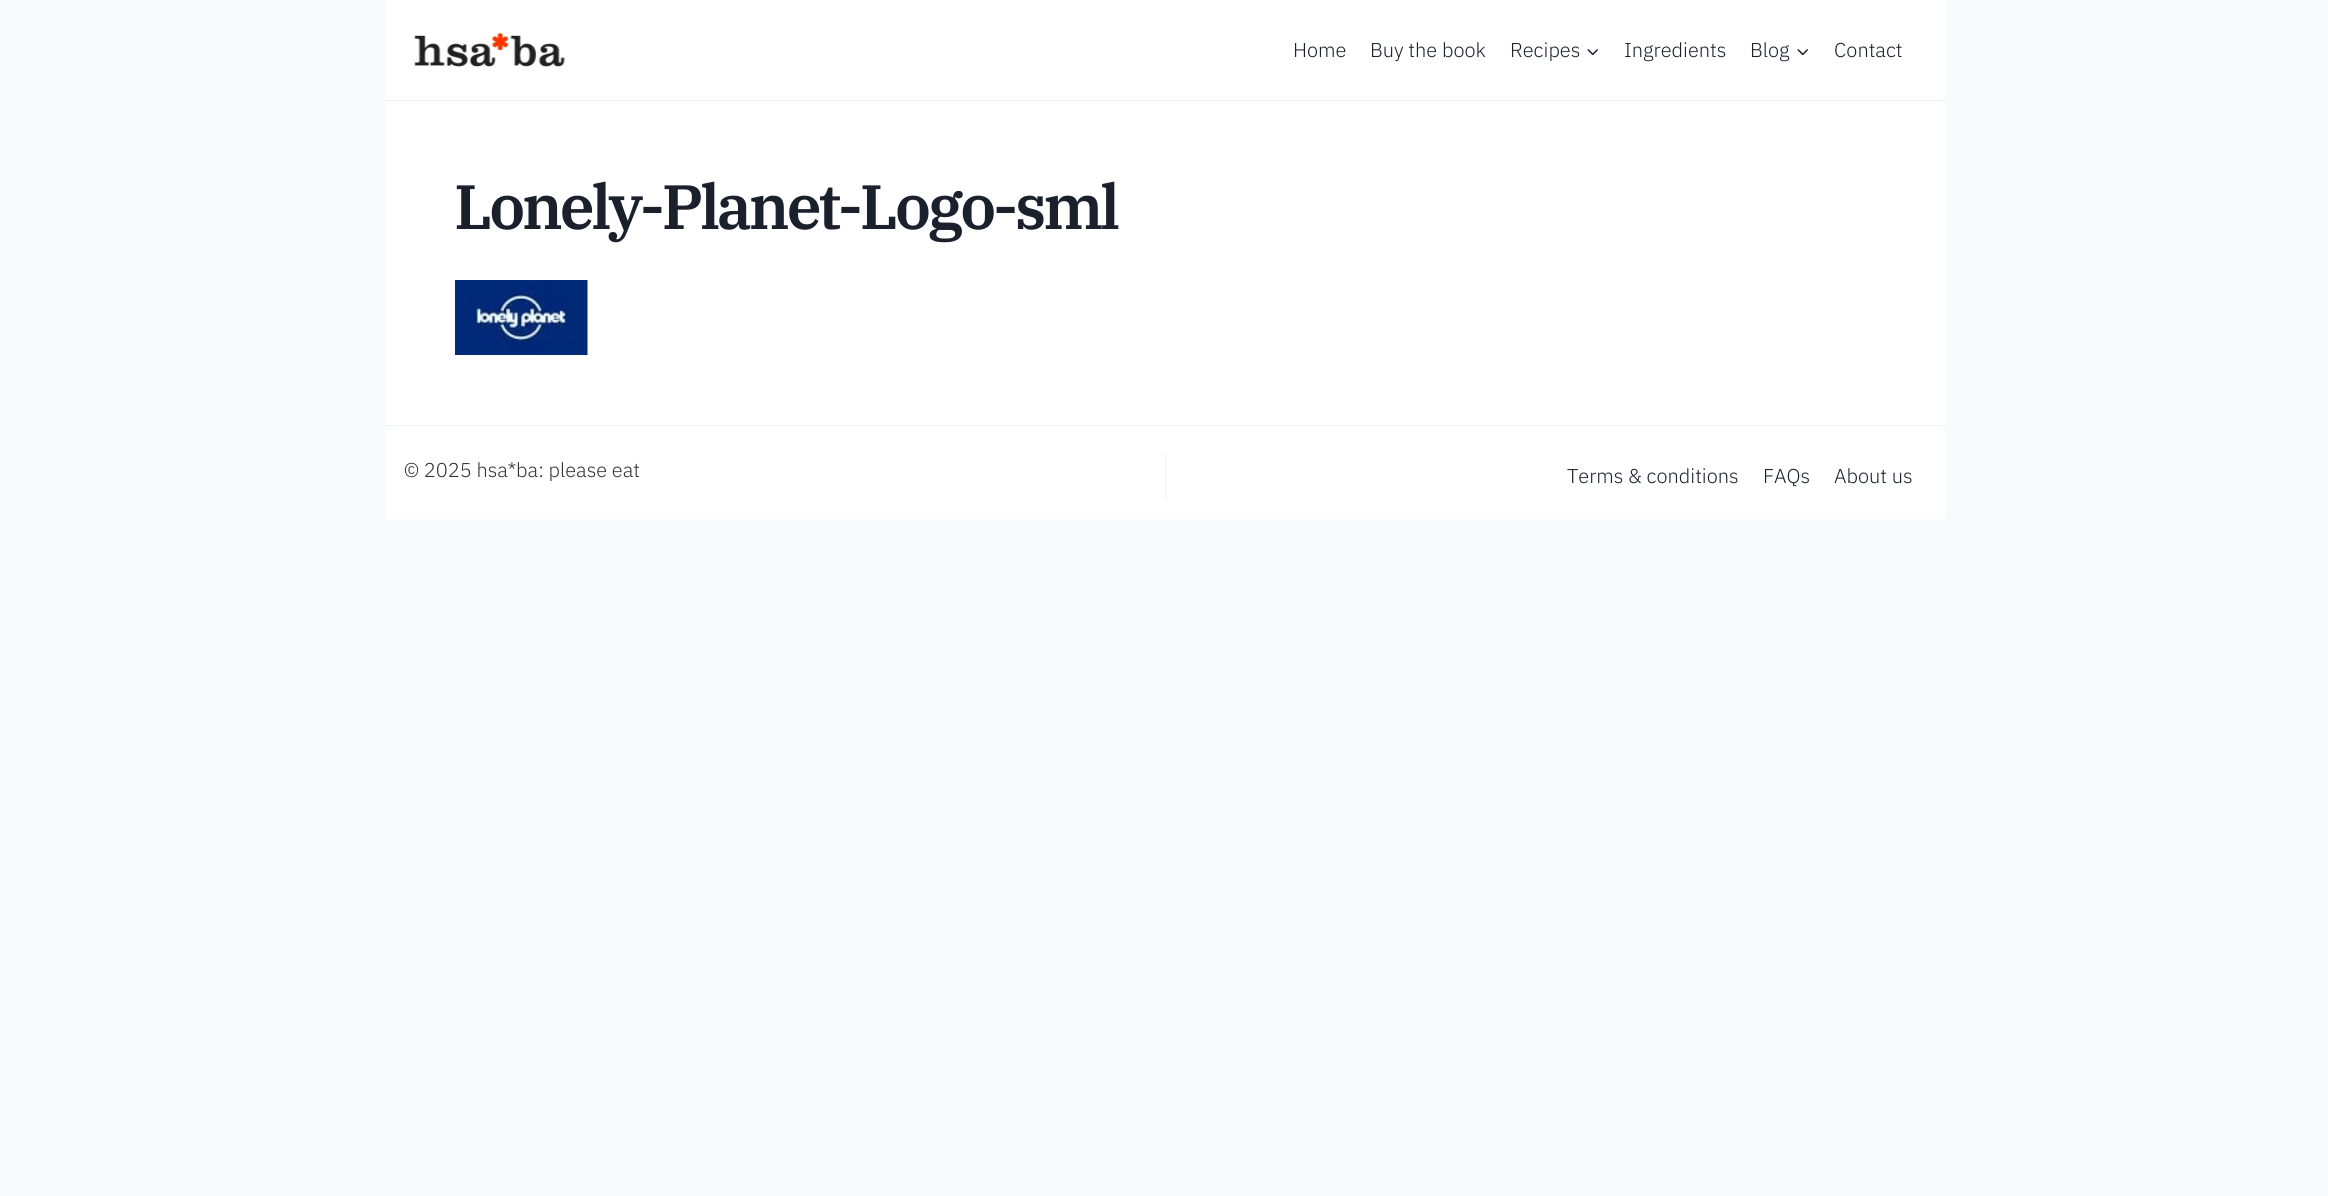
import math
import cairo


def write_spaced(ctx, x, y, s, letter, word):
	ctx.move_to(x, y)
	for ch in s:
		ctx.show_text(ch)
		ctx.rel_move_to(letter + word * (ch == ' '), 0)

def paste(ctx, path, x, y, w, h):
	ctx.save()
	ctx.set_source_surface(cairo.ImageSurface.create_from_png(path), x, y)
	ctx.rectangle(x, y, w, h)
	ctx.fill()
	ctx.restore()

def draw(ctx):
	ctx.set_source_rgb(0.969, 0.98, 0.988)
	ctx.paint()
	ctx.set_source_rgb(1, 1, 1)
	ctx.rectangle(385, 0, 1560, 100)
	ctx.fill()
	ctx.set_source_rgb(0.929, 0.949, 0.969)
	ctx.rectangle(385, 100, 1560, 1)
	ctx.fill()
	paste(ctx, 'media/1.png', 414, 32, 151, 35)
	ctx.select_font_face('IBM Plex Sans Light')
	ctx.set_font_size(20)
	ctx.set_source_rgb(0.102, 0.125, 0.173)
	for x, y, s in [
		(1293, 57, 'Home'),
		(1370, 57, 'Buy the book'),
		(1510, 57, 'Recipes'),
	]:
		ctx.move_to(x, y)
		ctx.show_text(s)
	paste(ctx, 'media/2.png', 1587, 49, 11, 7)
	ctx.move_to(1624, 57)
	ctx.show_text('Ingredients')
	ctx.move_to(1750, 57)
	ctx.show_text('Blog')
	paste(ctx, 'media/2.png', 1797, 49, 11, 7)
	ctx.move_to(1834, 57)
	ctx.show_text('Contact')
	ctx.set_source_rgb(1, 1, 1)
	ctx.rectangle(385, 101, 1560, 324)
	ctx.fill()
	ctx.select_font_face('IBM Plex Serif SemiBold')
	ctx.set_font_size(62.5)
	ctx.set_source_rgb(0.102, 0.125, 0.173)
	write_spaced(ctx, 454, 229, 'Lonely-Planet-Logo-sml', -3.1, 0)
	paste(ctx, 'media/3.png', 455, 280, 133, 75)
	ctx.set_source_rgb(1, 1, 1)
	ctx.rectangle(385, 426, 1560, 93)
	ctx.fill()
	ctx.set_source_rgb(0.929, 0.949, 0.969)
	ctx.rectangle(385, 425, 1560, 1)
	ctx.fill()
	ctx.select_font_face('IBM Plex Sans Light')
	ctx.set_font_size(20)
	ctx.set_source_rgb(0.2, 0.2, 0.2)
	ctx.move_to(404, 477)
	ctx.show_text('© 2025 hsa*ba: please eat')
	ctx.set_source_rgb(0.929, 0.949, 0.969)
	ctx.rectangle(1165, 454, 1, 45)
	ctx.fill()
	ctx.set_source_rgb(0.102, 0.125, 0.173)
	for x, y, s in [
		(1567, 483, 'Terms & conditions'),
		(1763, 483, 'FAQs'),
		(1834, 483, 'About us'),
	]:
		ctx.move_to(x, y)
		ctx.show_text(s)


surface = cairo.ImageSurface(cairo.FORMAT_RGB24, 2328, 1196)
ctx = cairo.Context(surface)
options = cairo.FontOptions()
options.set_hint_metrics(cairo.HINT_METRICS_OFF)
options.set_hint_style(cairo.HINT_STYLE_NONE)
ctx.set_font_options(options)
ctx.set_miter_limit(4)
draw(ctx)
surface.write_to_png('image.png')
